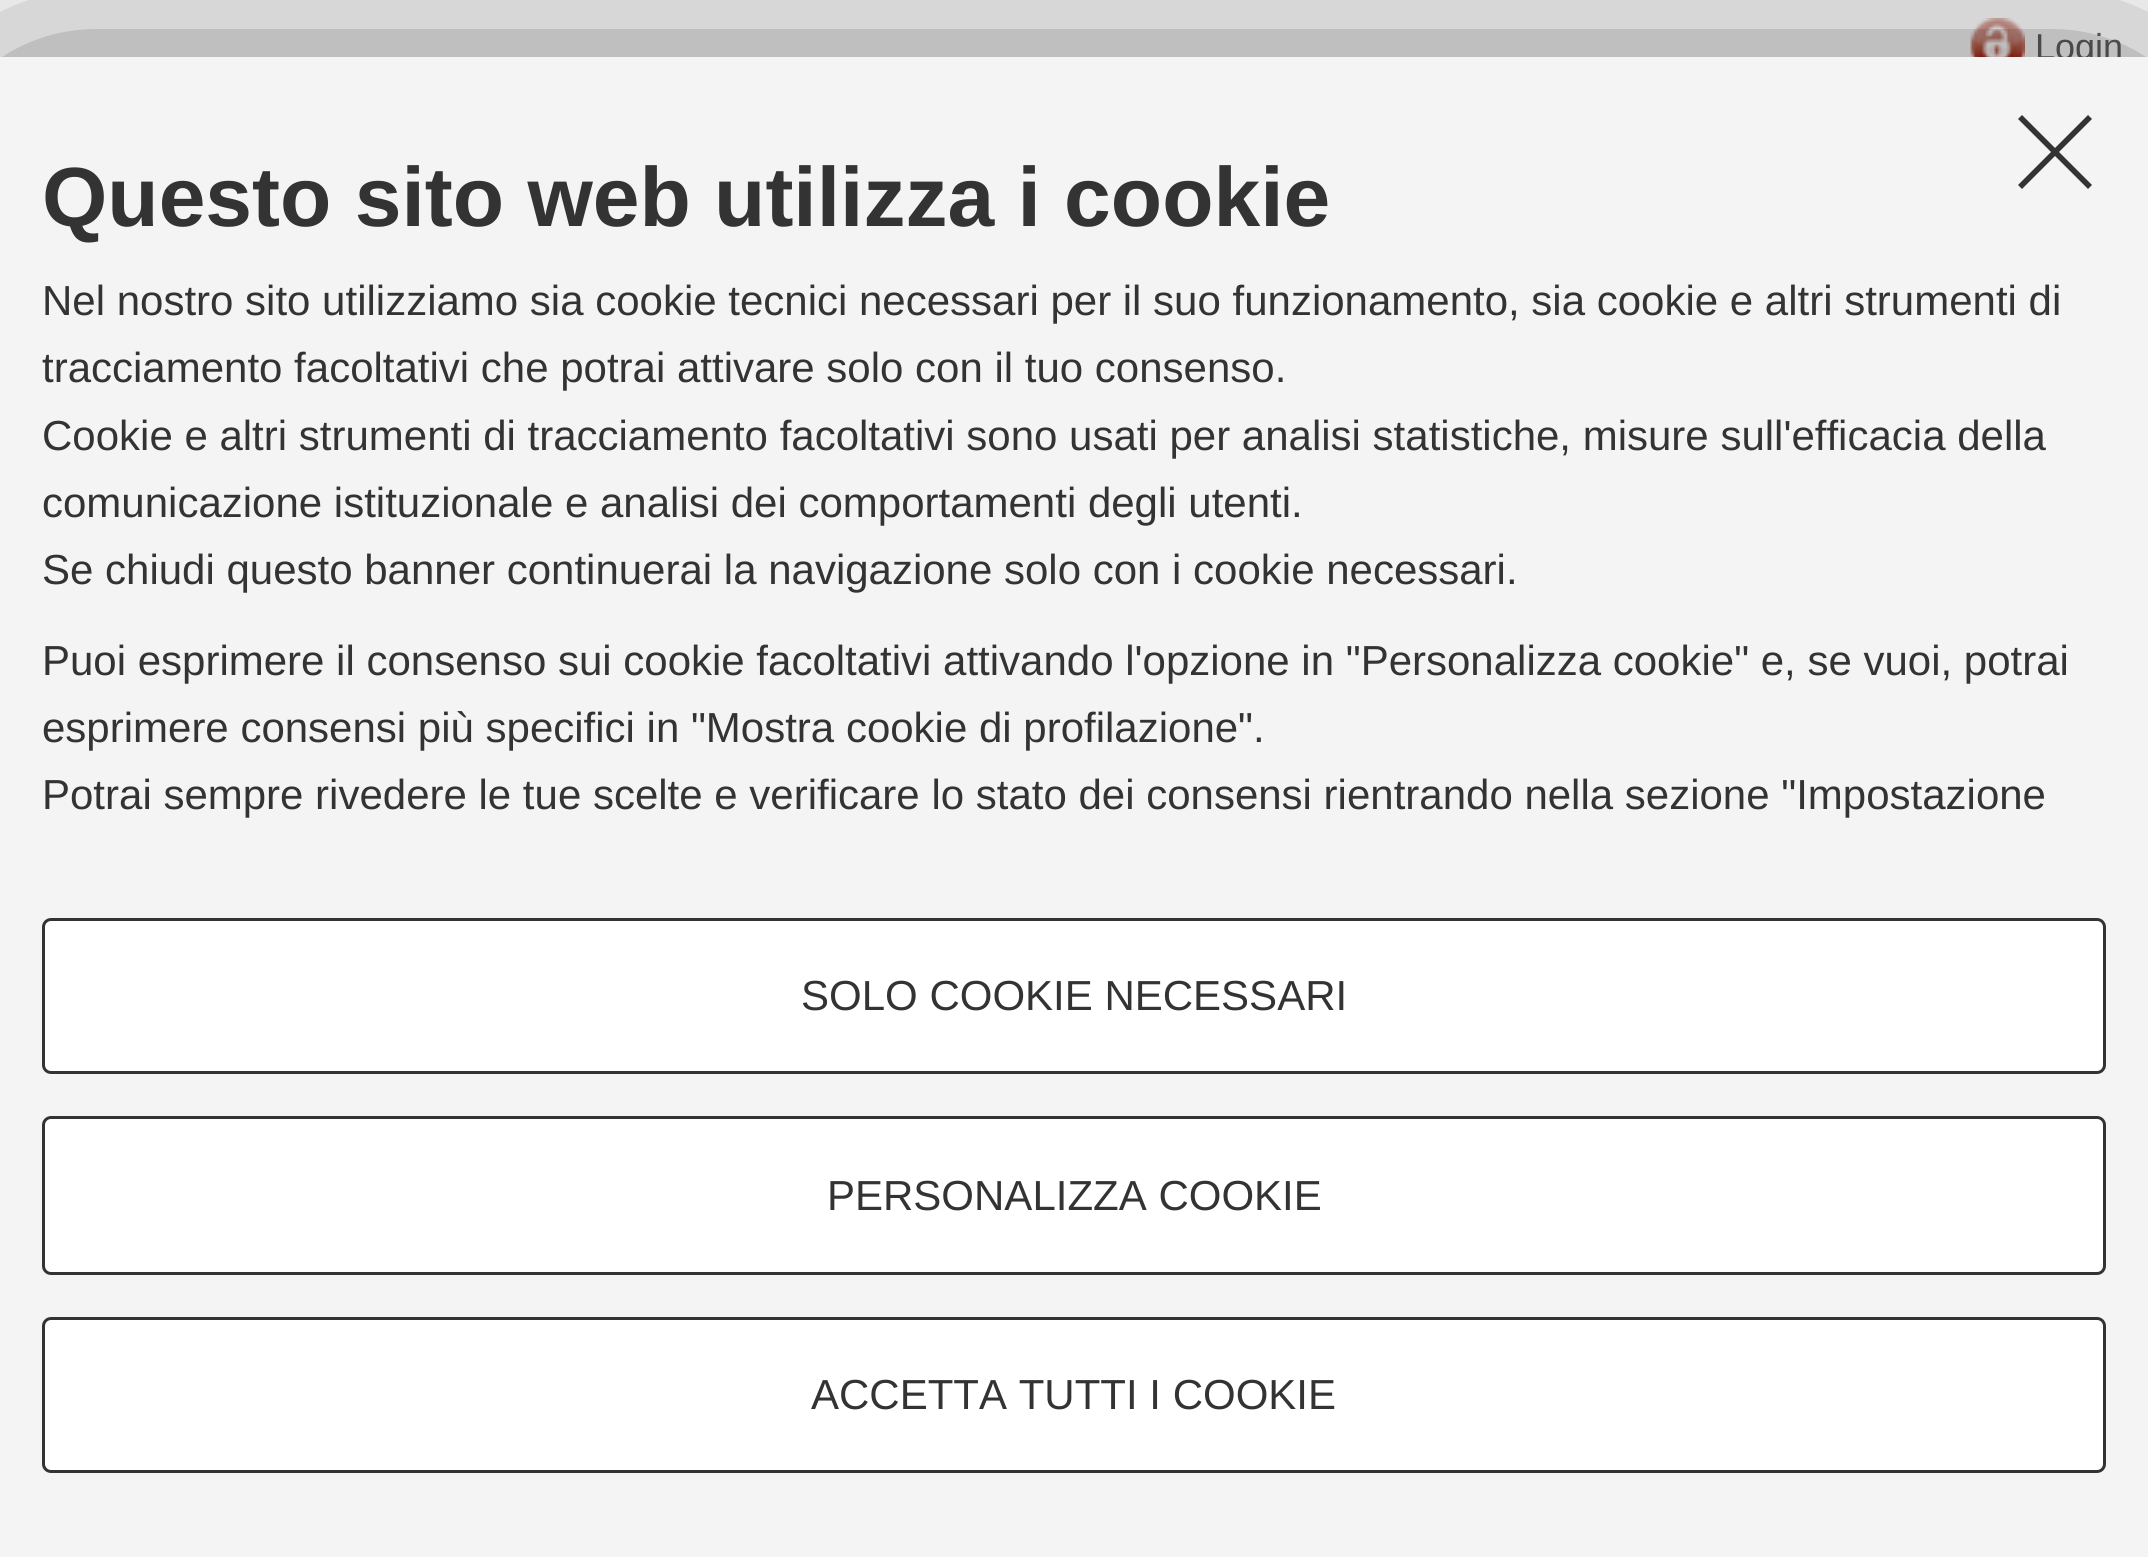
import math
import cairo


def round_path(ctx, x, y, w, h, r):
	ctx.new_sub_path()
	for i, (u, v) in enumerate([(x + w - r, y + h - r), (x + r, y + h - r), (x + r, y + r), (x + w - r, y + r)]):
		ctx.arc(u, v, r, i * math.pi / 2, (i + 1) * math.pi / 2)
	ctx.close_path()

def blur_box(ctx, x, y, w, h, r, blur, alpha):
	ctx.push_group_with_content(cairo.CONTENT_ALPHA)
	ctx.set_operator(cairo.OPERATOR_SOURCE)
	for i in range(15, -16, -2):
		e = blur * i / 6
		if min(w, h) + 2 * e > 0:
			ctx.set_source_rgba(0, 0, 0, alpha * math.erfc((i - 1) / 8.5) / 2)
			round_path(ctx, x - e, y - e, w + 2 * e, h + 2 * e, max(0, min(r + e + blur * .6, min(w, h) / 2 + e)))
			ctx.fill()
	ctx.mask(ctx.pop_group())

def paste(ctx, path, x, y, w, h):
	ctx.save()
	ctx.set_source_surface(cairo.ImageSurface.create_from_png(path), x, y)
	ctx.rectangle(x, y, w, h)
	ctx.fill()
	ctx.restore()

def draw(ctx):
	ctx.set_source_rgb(1, 1, 1)
	ctx.paint()
	paste(ctx, 'media/1.png', 1970, 18, 55, 39)
	ctx.select_font_face('Liberation Sans')
	ctx.set_font_size(36)
	ctx.set_source_rgb(0.38, 0.384, 0.396)
	ctx.move_to(2035, 59)
	ctx.show_text('Login')
	ctx.set_source_rgb(0, 0, 0)
	blur_box(ctx, 24, 129, 2100, 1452, 0, 120, 1)
	ctx.set_source_rgb(0.957, 0.957, 0.957)
	ctx.rectangle(0, 57, 2148, 1500)
	ctx.fill()
	ctx.set_source_rgb(0.2, 0.2, 0.2)
	ctx.new_path()
	ctx.move_to(2088, 115)
	ctx.line_to(2092, 119)
	ctx.line_to(2022, 189)
	ctx.line_to(2018, 185)
	ctx.close_path()
	ctx.fill()
	ctx.new_path()
	ctx.move_to(2018, 119)
	ctx.line_to(2022, 115)
	ctx.line_to(2092, 185)
	ctx.line_to(2088, 189)
	ctx.close_path()
	ctx.fill()
	ctx.select_font_face('Liberation Sans', cairo.FONT_SLANT_NORMAL, cairo.FONT_WEIGHT_BOLD)
	ctx.set_font_size(84)
	ctx.move_to(42, 226)
	ctx.show_text('Questo sito web utilizza i cookie')
	ctx.select_font_face('Liberation Sans')
	ctx.set_font_size(42)
	for x, y, s in [
		(42, 315, 'Nel nostro sito utilizziamo sia cookie tecnici necessari per il suo funzionamento, sia cookie e altri strumenti di'),
		(42, 382, 'tracciamento facoltativi che potrai attivare solo con il tuo consenso.'),
		(42, 450, 'Cookie e altri strumenti di tracciamento facoltativi sono usati per analisi statistiche, misure sull\'efficacia della'),
		(42, 517, 'comunicazione istituzionale e analisi dei comportamenti degli utenti.'),
		(42, 584, 'Se chiudi questo banner continuerai la navigazione solo con i cookie necessari.'),
		(42, 675, 'Puoi esprimere il consenso sui cookie facoltativi attivando l\'opzione in "Personalizza cookie" e, se vuoi, potrai'),
		(42, 742, 'esprimere consensi più specifici in "Mostra cookie di profilazione".'),
		(42, 809, 'Potrai sempre rivedere le tue scelte e verificare lo stato dei consensi rientrando nella sezione "Impostazione'),
	]:
		ctx.move_to(x, y)
		ctx.show_text(s)
	ctx.set_source_rgb(1, 1, 1)
	round_path(ctx, 43.5, 919.5, 2061, 153, 7.5)
	ctx.fill_preserve()
	ctx.set_source_rgb(0.2, 0.2, 0.2)
	ctx.set_line_width(3)
	ctx.stroke()
	ctx.move_to(801, 1010)
	ctx.show_text('SOLO COOKIE NECESSARI')
	ctx.set_source_rgb(1, 1, 1)
	round_path(ctx, 43.5, 1117.5, 2061, 156, 7.5)
	ctx.fill_preserve()
	ctx.set_source_rgb(0.2, 0.2, 0.2)
	ctx.stroke()
	ctx.move_to(827, 1210)
	ctx.show_text('PERSONALIZZA COOKIE')
	ctx.set_source_rgb(1, 1, 1)
	round_path(ctx, 43.5, 1318.5, 2061, 153, 7.5)
	ctx.fill_preserve()
	ctx.set_source_rgb(0.2, 0.2, 0.2)
	ctx.stroke()
	ctx.move_to(811, 1409)
	ctx.show_text('ACCETTA TUTTI I COOKIE')


surface = cairo.ImageSurface(cairo.FORMAT_RGB24, 2148, 1557)
ctx = cairo.Context(surface)
options = cairo.FontOptions()
options.set_hint_metrics(cairo.HINT_METRICS_OFF)
options.set_hint_style(cairo.HINT_STYLE_NONE)
ctx.set_font_options(options)
ctx.set_miter_limit(4)
draw(ctx)
surface.write_to_png('image.png')
